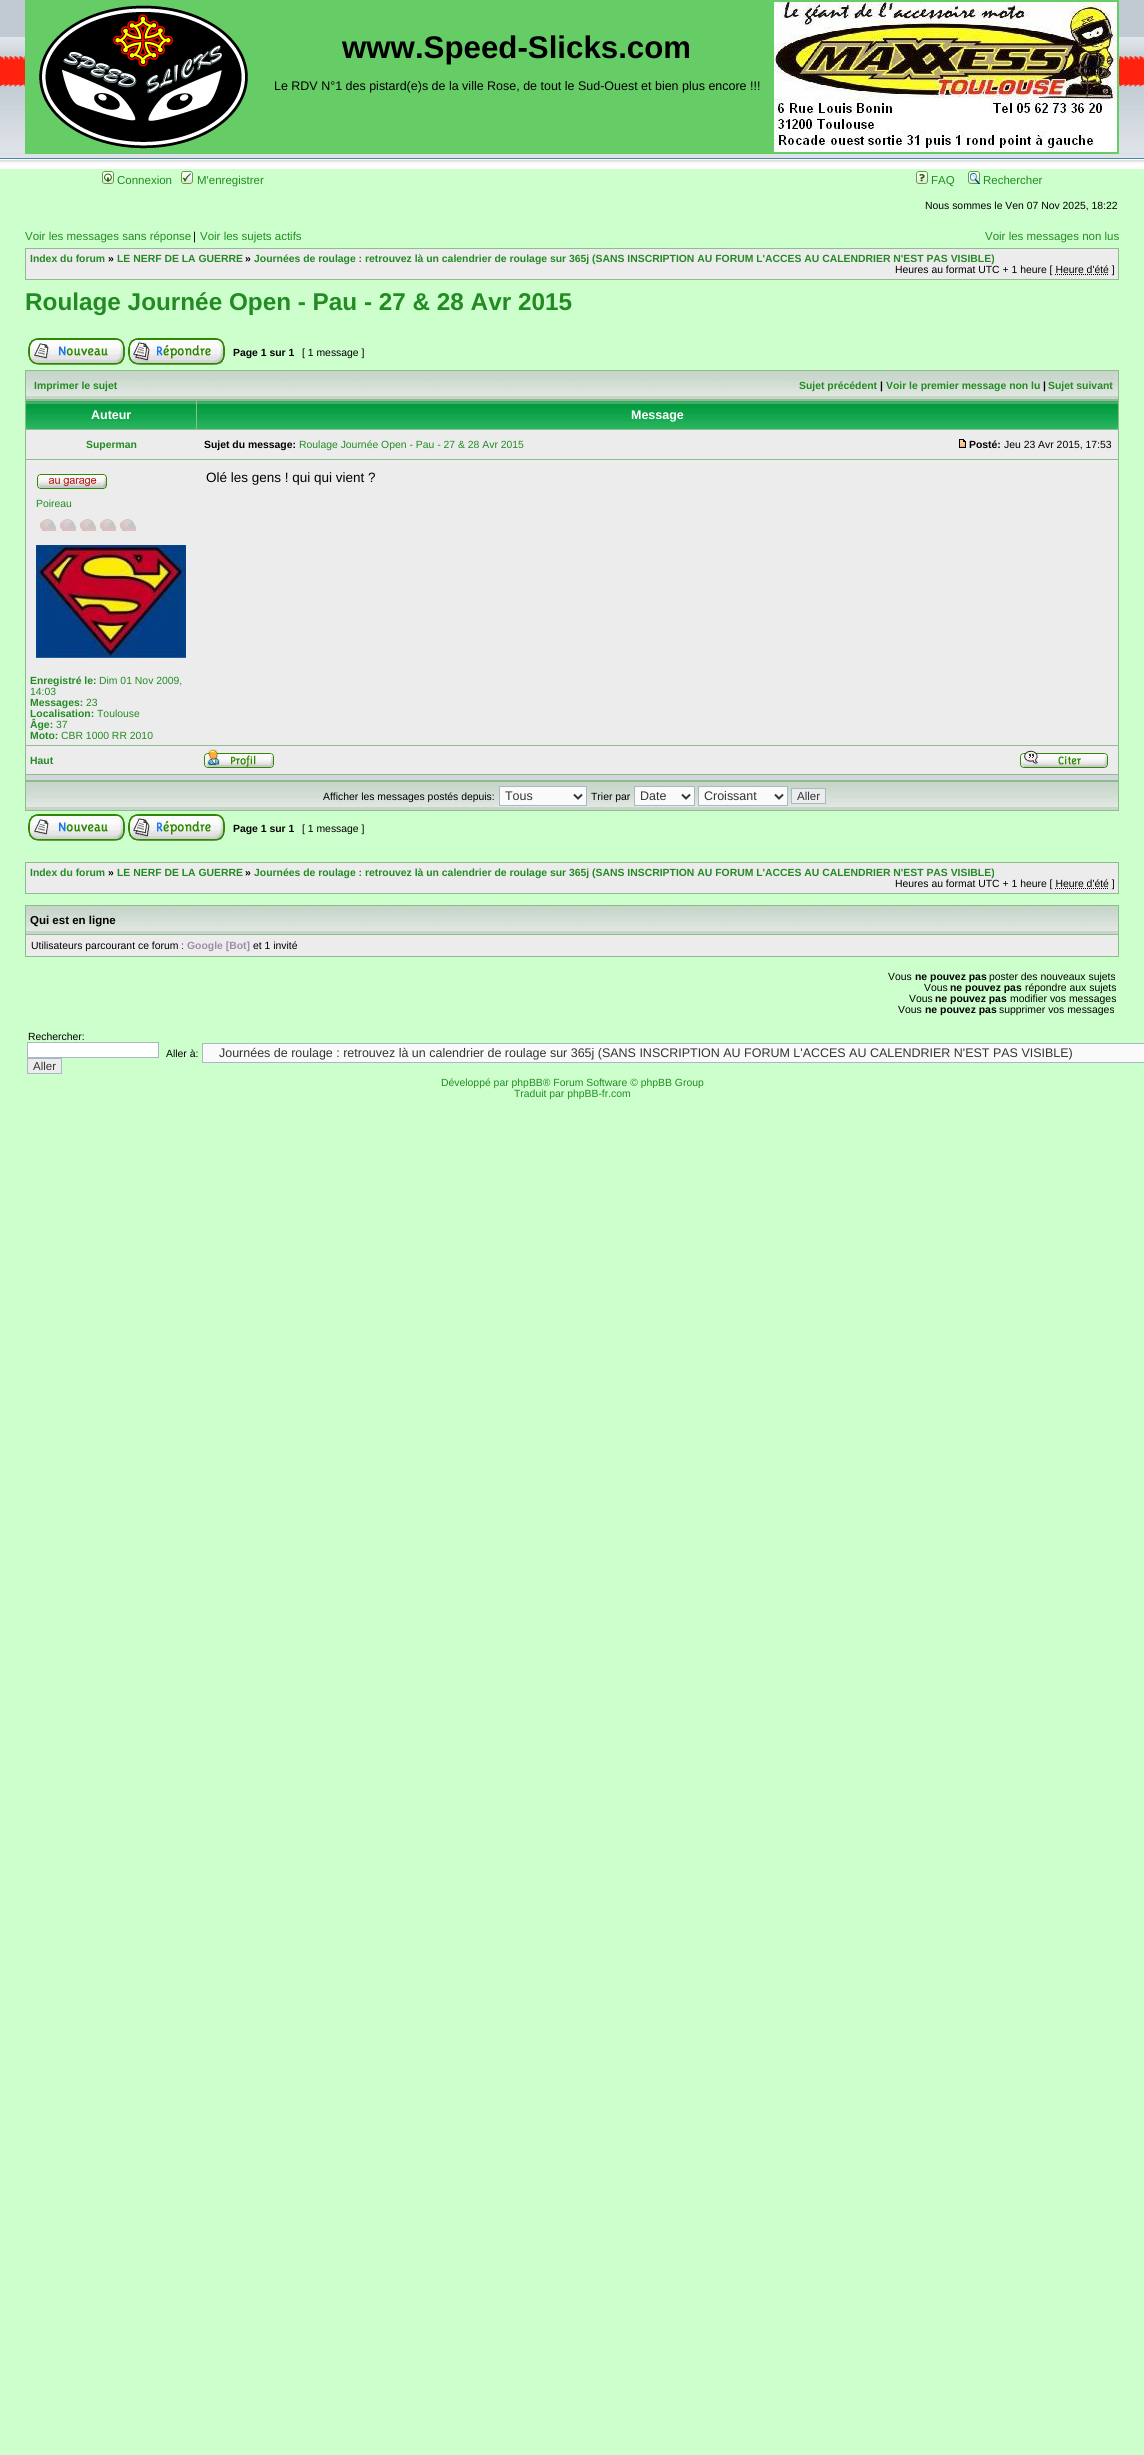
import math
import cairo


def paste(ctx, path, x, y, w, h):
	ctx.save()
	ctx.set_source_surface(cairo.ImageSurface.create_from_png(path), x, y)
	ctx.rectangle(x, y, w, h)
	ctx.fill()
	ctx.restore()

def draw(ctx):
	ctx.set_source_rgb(0.8, 1, 0.8)
	ctx.paint()
	ctx.set_source_rgb(0.757, 0.792, 0.824)
	ctx.rectangle(0, 0, 1144, 37)
	ctx.fill()
	paste(ctx, 'media/1.png', 0, 37, 1144, 132)
	ctx.set_source_rgb(0.4, 0.8, 0.4)
	ctx.rectangle(25, 0, 1094, 154)
	ctx.fill()
	paste(ctx, 'media/2.png', 39, 5, 209, 144)
	ctx.select_font_face('Liberation Sans', cairo.FONT_SLANT_NORMAL, cairo.FONT_WEIGHT_BOLD)
	ctx.set_font_size(31.25)
	ctx.set_source_rgb(0, 0, 0)
	ctx.move_to(342, 58)
	ctx.show_text('www.Speed-Slicks.com')
	ctx.select_font_face('Liberation Sans')
	ctx.set_font_size(12.48)
	ctx.move_to(274, 90)
	ctx.show_text('Le RDV N°1 des pistard(e)s de la ville Rose, de tout le Sud-Ouest et bien plus encore !!!')
	paste(ctx, 'media/3.png', 774, 2, 343, 150)
	paste(ctx, 'media/4.png', 102, 171, 12, 13)
	ctx.set_font_size(11.5)
	ctx.set_source_rgb(0.133, 0.545, 0.133)
	ctx.move_to(117, 184)
	ctx.show_text('Connexion')
	paste(ctx, 'media/5.png', 181, 171, 12, 13)
	ctx.move_to(197, 184)
	ctx.show_text('M\'enregistrer')
	paste(ctx, 'media/6.png', 916, 171, 12, 13)
	ctx.move_to(931, 184)
	ctx.show_text('FAQ')
	paste(ctx, 'media/7.png', 968, 171, 12, 13)
	ctx.move_to(983, 184)
	ctx.show_text('Rechercher')
	ctx.set_font_size(10.4)
	ctx.set_source_rgb(0, 0, 0)
	ctx.move_to(925, 209)
	ctx.show_text('Nous sommes le Ven 07 Nov 2025, 18:22')
	ctx.set_font_size(11.5)
	ctx.set_source_rgb(0.133, 0.545, 0.133)
	ctx.move_to(25, 240)
	ctx.show_text('Voir les messages sans réponse')
	ctx.set_source_rgb(0, 0, 0)
	ctx.move_to(193, 240)
	ctx.show_text('|')
	ctx.set_source_rgb(0.133, 0.545, 0.133)
	ctx.move_to(200, 240)
	ctx.show_text('Voir les sujets actifs')
	ctx.move_to(985, 240)
	ctx.show_text('Voir les messages non lus')
	ctx.set_source_rgb(0.561, 0.737, 0.561)
	ctx.rectangle(25, 248, 1094, 32)
	ctx.fill()
	ctx.set_source_rgb(0.925, 0.925, 0.925)
	ctx.rectangle(26, 249, 1092, 30)
	ctx.fill()
	ctx.select_font_face('Liberation Sans', cairo.FONT_SLANT_NORMAL, cairo.FONT_WEIGHT_BOLD)
	ctx.set_font_size(10.4)
	ctx.set_source_rgb(0.133, 0.545, 0.133)
	ctx.move_to(30, 262)
	ctx.show_text('Index du forum')
	ctx.set_source_rgb(0, 0, 0)
	ctx.move_to(108, 262)
	ctx.show_text('»')
	ctx.set_source_rgb(0.133, 0.545, 0.133)
	ctx.move_to(117, 262)
	ctx.show_text('LE NERF DE LA GUERRE')
	ctx.set_source_rgb(0, 0, 0)
	ctx.move_to(245, 262)
	ctx.show_text('»')
	ctx.set_source_rgb(0.133, 0.545, 0.133)
	ctx.move_to(254, 262)
	ctx.show_text('Journées de roulage : retrouvez là un calendrier de roulage sur 365j (SANS INSCRIPTION AU FORUM L\'ACCES AU CALENDRIER N\'EST PAS VISIBLE)')
	ctx.select_font_face('Liberation Sans')
	ctx.set_source_rgb(0, 0, 0)
	ctx.move_to(895, 273)
	ctx.show_text('Heures au format UTC + 1 heure [ Heure d\'été ]')
	ctx.new_path()
	ctx.move_to(1055, 274.5)
	ctx.line_to(1108, 274.5)
	ctx.set_line_width(1)
	ctx.set_dash([1, 1])
	ctx.stroke()
	ctx.select_font_face('Liberation Sans', cairo.FONT_SLANT_NORMAL, cairo.FONT_WEIGHT_BOLD)
	ctx.set_font_size(24.3)
	ctx.set_source_rgb(0.133, 0.545, 0.133)
	ctx.move_to(25, 310)
	ctx.show_text('Roulage Journée Open - Pau - 27 & 28 Avr 2015')
	paste(ctx, 'media/8.png', 28, 338, 97, 27)
	paste(ctx, 'media/9.png', 128, 338, 97, 27)
	ctx.set_font_size(10.4)
	ctx.set_source_rgb(0, 0, 0)
	ctx.move_to(233, 356)
	ctx.show_text('Page 1 sur 1')
	ctx.select_font_face('Liberation Sans')
	ctx.move_to(302, 356)
	ctx.show_text('[ 1 message ]')
	ctx.set_source_rgb(0.561, 0.737, 0.561)
	ctx.rectangle(25, 370, 1094, 441)
	ctx.fill()
	paste(ctx, 'media/10.png', 26, 371, 1092, 28)
	ctx.select_font_face('Liberation Sans', cairo.FONT_SLANT_NORMAL, cairo.FONT_WEIGHT_BOLD)
	ctx.set_source_rgb(0.133, 0.545, 0.133)
	ctx.move_to(34, 389)
	ctx.show_text('Imprimer le sujet')
	ctx.move_to(799, 389)
	ctx.show_text('Sujet précédent')
	ctx.set_source_rgb(0, 0, 0)
	ctx.move_to(880, 389)
	ctx.show_text('|')
	ctx.set_source_rgb(0.133, 0.545, 0.133)
	ctx.move_to(886, 389)
	ctx.show_text('Voir le premier message non lu')
	ctx.set_source_rgb(0, 0, 0)
	ctx.move_to(1043, 389)
	ctx.show_text('|')
	ctx.set_source_rgb(0.133, 0.545, 0.133)
	ctx.move_to(1048, 389)
	ctx.show_text('Sujet suivant')
	paste(ctx, 'media/11.png', 26, 401, 170, 28)
	ctx.set_font_size(12.48)
	ctx.set_source_rgb(1, 1, 1)
	ctx.move_to(91, 419)
	ctx.show_text('Auteur')
	paste(ctx, 'media/12.png', 197, 401, 921, 28)
	ctx.move_to(631, 419)
	ctx.show_text('Message')
	ctx.set_source_rgb(0.925, 0.925, 0.925)
	ctx.rectangle(26, 430, 1092, 29)
	ctx.fill()
	ctx.set_font_size(10.4)
	ctx.set_source_rgb(0.133, 0.545, 0.133)
	ctx.move_to(86, 448)
	ctx.show_text('Superman')
	ctx.set_source_rgb(0, 0, 0)
	ctx.move_to(204, 448)
	ctx.show_text('Sujet du message:')
	ctx.select_font_face('Liberation Sans')
	ctx.set_source_rgb(0.133, 0.545, 0.133)
	ctx.move_to(299, 448)
	ctx.show_text('Roulage Journée Open - Pau - 27 & 28 Avr 2015')
	paste(ctx, 'media/13.png', 959, 439, 7, 9)
	ctx.select_font_face('Liberation Sans', cairo.FONT_SLANT_NORMAL, cairo.FONT_WEIGHT_BOLD)
	ctx.set_source_rgb(0, 0, 0)
	ctx.move_to(969, 448)
	ctx.show_text('Posté:')
	ctx.select_font_face('Liberation Sans')
	ctx.move_to(1004, 448)
	ctx.show_text('Jeu 23 Avr 2015, 17:53')
	ctx.set_source_rgb(0.925, 0.925, 0.925)
	ctx.rectangle(26, 460, 1092, 285)
	ctx.fill()
	ctx.set_font_size(13.5)
	ctx.set_source_rgb(0, 0, 0)
	ctx.move_to(206, 482)
	ctx.show_text('Olé les gens ! qui qui vient ?')
	paste(ctx, 'media/14.png', 37, 474, 70, 15)
	ctx.set_font_size(10.4)
	ctx.set_source_rgb(0.133, 0.545, 0.133)
	ctx.move_to(36, 507)
	ctx.show_text('Poireau')
	paste(ctx, 'media/15.png', 40, 519, 96, 12)
	paste(ctx, 'media/16.png', 36, 545, 150, 113)
	ctx.select_font_face('Liberation Sans', cairo.FONT_SLANT_NORMAL, cairo.FONT_WEIGHT_BOLD)
	ctx.move_to(30, 684)
	ctx.show_text('Enregistré le:')
	ctx.select_font_face('Liberation Sans')
	ctx.move_to(99, 684)
	ctx.show_text('Dim 01 Nov 2009,')
	ctx.move_to(30, 695)
	ctx.show_text('14:03')
	ctx.select_font_face('Liberation Sans', cairo.FONT_SLANT_NORMAL, cairo.FONT_WEIGHT_BOLD)
	ctx.move_to(30, 706)
	ctx.show_text('Messages:')
	ctx.select_font_face('Liberation Sans')
	ctx.move_to(86, 706)
	ctx.show_text('23')
	ctx.select_font_face('Liberation Sans', cairo.FONT_SLANT_NORMAL, cairo.FONT_WEIGHT_BOLD)
	ctx.move_to(30, 717)
	ctx.show_text('Localisation:')
	ctx.select_font_face('Liberation Sans')
	ctx.move_to(97, 717)
	ctx.show_text('Toulouse')
	ctx.select_font_face('Liberation Sans', cairo.FONT_SLANT_NORMAL, cairo.FONT_WEIGHT_BOLD)
	ctx.move_to(30, 728)
	ctx.show_text('Âge:')
	ctx.select_font_face('Liberation Sans')
	ctx.move_to(56, 728)
	ctx.show_text('37')
	ctx.select_font_face('Liberation Sans', cairo.FONT_SLANT_NORMAL, cairo.FONT_WEIGHT_BOLD)
	ctx.move_to(30, 739)
	ctx.show_text('Moto:')
	ctx.select_font_face('Liberation Sans')
	ctx.move_to(61, 739)
	ctx.show_text('CBR 1000 RR 2010')
	ctx.set_source_rgb(0.925, 0.925, 0.925)
	ctx.rectangle(26, 746, 1092, 28)
	ctx.fill()
	ctx.select_font_face('Liberation Sans', cairo.FONT_SLANT_NORMAL, cairo.FONT_WEIGHT_BOLD)
	ctx.set_source_rgb(0.133, 0.545, 0.133)
	ctx.move_to(30, 764)
	ctx.show_text('Haut')
	paste(ctx, 'media/17.png', 204, 749, 70, 19)
	paste(ctx, 'media/18.png', 1020, 750, 88, 18)
	ctx.set_source_rgb(0.82, 0.843, 0.863)
	ctx.rectangle(26, 775, 1092, 5)
	ctx.fill()
	paste(ctx, 'media/10.png', 26, 782, 1092, 28)
	ctx.select_font_face('Liberation Sans')
	ctx.set_source_rgb(0, 0, 0)
	ctx.move_to(323, 800)
	ctx.show_text('Afficher les messages postés depuis:')
	ctx.set_source_rgb(0.98, 0.98, 0.98)
	ctx.rectangle(499.5, 786.5, 87, 19)
	ctx.fill_preserve()
	ctx.set_source_rgb(0.663, 0.722, 0.761)
	ctx.set_dash([])
	ctx.stroke()
	ctx.new_path()
	ctx.move_to(574, 794.5)
	ctx.line_to(578, 798.5)
	ctx.line_to(582, 794.5)
	ctx.set_source_rgb(0.2, 0.2, 0.2)
	ctx.set_line_width(2)
	ctx.stroke()
	ctx.set_font_size(12.48)
	ctx.move_to(505, 800)
	ctx.show_text('Tous')
	ctx.set_font_size(10.4)
	ctx.set_source_rgb(0, 0, 0)
	ctx.move_to(591, 800)
	ctx.show_text('Trier par')
	ctx.set_source_rgb(0.98, 0.98, 0.98)
	ctx.rectangle(634.5, 786.5, 60, 19)
	ctx.fill_preserve()
	ctx.set_source_rgb(0.663, 0.722, 0.761)
	ctx.set_line_width(1)
	ctx.stroke()
	ctx.new_path()
	ctx.move_to(682, 794.5)
	ctx.line_to(686, 798.5)
	ctx.line_to(690, 794.5)
	ctx.set_source_rgb(0.2, 0.2, 0.2)
	ctx.set_line_width(2)
	ctx.stroke()
	ctx.set_font_size(12.48)
	ctx.move_to(640, 800)
	ctx.show_text('Date')
	ctx.set_source_rgb(0.98, 0.98, 0.98)
	ctx.rectangle(698.5, 786.5, 89, 19)
	ctx.fill_preserve()
	ctx.set_source_rgb(0.663, 0.722, 0.761)
	ctx.set_line_width(1)
	ctx.stroke()
	ctx.new_path()
	ctx.move_to(775, 794.5)
	ctx.line_to(779, 798.5)
	ctx.line_to(783, 794.5)
	ctx.set_source_rgb(0.2, 0.2, 0.2)
	ctx.set_line_width(2)
	ctx.stroke()
	ctx.move_to(704, 800)
	ctx.show_text('Croissant')
	ctx.set_source_rgb(0.925, 0.925, 0.925)
	ctx.rectangle(791.5, 788.5, 34, 15)
	ctx.fill_preserve()
	ctx.set_source_rgb(0.663, 0.722, 0.761)
	ctx.set_line_width(1)
	ctx.stroke()
	ctx.set_font_size(11.5)
	ctx.set_source_rgb(0.2, 0.2, 0.2)
	ctx.move_to(797, 800)
	ctx.show_text('Aller')
	paste(ctx, 'media/8.png', 28, 814, 97, 27)
	paste(ctx, 'media/9.png', 128, 814, 97, 27)
	ctx.select_font_face('Liberation Sans', cairo.FONT_SLANT_NORMAL, cairo.FONT_WEIGHT_BOLD)
	ctx.set_font_size(10.4)
	ctx.set_source_rgb(0, 0, 0)
	ctx.move_to(233, 832)
	ctx.show_text('Page 1 sur 1')
	ctx.select_font_face('Liberation Sans')
	ctx.move_to(302, 832)
	ctx.show_text('[ 1 message ]')
	ctx.set_source_rgb(0.561, 0.737, 0.561)
	ctx.rectangle(25, 862, 1094, 32)
	ctx.fill()
	ctx.set_source_rgb(0.925, 0.925, 0.925)
	ctx.rectangle(26, 863, 1092, 30)
	ctx.fill()
	ctx.select_font_face('Liberation Sans', cairo.FONT_SLANT_NORMAL, cairo.FONT_WEIGHT_BOLD)
	ctx.set_source_rgb(0.133, 0.545, 0.133)
	ctx.move_to(30, 876)
	ctx.show_text('Index du forum')
	ctx.set_source_rgb(0, 0, 0)
	ctx.move_to(108, 876)
	ctx.show_text('»')
	ctx.set_source_rgb(0.133, 0.545, 0.133)
	ctx.move_to(117, 876)
	ctx.show_text('LE NERF DE LA GUERRE')
	ctx.set_source_rgb(0, 0, 0)
	ctx.move_to(245, 876)
	ctx.show_text('»')
	ctx.set_source_rgb(0.133, 0.545, 0.133)
	ctx.move_to(254, 876)
	ctx.show_text('Journées de roulage : retrouvez là un calendrier de roulage sur 365j (SANS INSCRIPTION AU FORUM L\'ACCES AU CALENDRIER N\'EST PAS VISIBLE)')
	ctx.select_font_face('Liberation Sans')
	ctx.set_source_rgb(0, 0, 0)
	ctx.move_to(895, 887)
	ctx.show_text('Heures au format UTC + 1 heure [ Heure d\'été ]')
	ctx.new_path()
	ctx.move_to(1055, 888.5)
	ctx.line_to(1108, 888.5)
	ctx.set_dash([1, 1])
	ctx.stroke()
	ctx.set_source_rgb(0.561, 0.737, 0.561)
	ctx.rectangle(25, 905, 1094, 52)
	ctx.fill()
	paste(ctx, 'media/10.png', 26, 906, 1092, 28)
	ctx.select_font_face('Liberation Sans', cairo.FONT_SLANT_NORMAL, cairo.FONT_WEIGHT_BOLD)
	ctx.set_font_size(11.5)
	ctx.set_source_rgb(0, 0, 0)
	ctx.move_to(30, 924)
	ctx.show_text('Qui est en ligne')
	ctx.set_source_rgb(0.925, 0.925, 0.925)
	ctx.rectangle(26, 935, 1092, 21)
	ctx.fill()
	ctx.select_font_face('Liberation Sans')
	ctx.set_font_size(10.4)
	ctx.set_source_rgb(0, 0, 0)
	ctx.move_to(31, 949)
	ctx.show_text('Utilisateurs parcourant ce forum :')
	ctx.select_font_face('Liberation Sans', cairo.FONT_SLANT_NORMAL, cairo.FONT_WEIGHT_BOLD)
	ctx.set_source_rgb(0.62, 0.553, 0.655)
	ctx.move_to(187, 949)
	ctx.show_text('Google [Bot]')
	ctx.select_font_face('Liberation Sans')
	ctx.set_source_rgb(0, 0, 0)
	ctx.move_to(253, 949)
	ctx.show_text('et 1 invité')
	ctx.move_to(888, 980)
	ctx.show_text('Vous')
	ctx.select_font_face('Liberation Sans', cairo.FONT_SLANT_NORMAL, cairo.FONT_WEIGHT_BOLD)
	ctx.move_to(915, 980)
	ctx.show_text('ne pouvez pas')
	ctx.select_font_face('Liberation Sans')
	ctx.move_to(989, 980)
	ctx.show_text('poster des nouveaux sujets')
	ctx.move_to(924, 991)
	ctx.show_text('Vous')
	ctx.select_font_face('Liberation Sans', cairo.FONT_SLANT_NORMAL, cairo.FONT_WEIGHT_BOLD)
	ctx.move_to(950, 991)
	ctx.show_text('ne pouvez pas')
	ctx.select_font_face('Liberation Sans')
	ctx.move_to(1025, 991)
	ctx.show_text('répondre aux sujets')
	ctx.move_to(909, 1002)
	ctx.show_text('Vous')
	ctx.select_font_face('Liberation Sans', cairo.FONT_SLANT_NORMAL, cairo.FONT_WEIGHT_BOLD)
	ctx.move_to(935, 1002)
	ctx.show_text('ne pouvez pas')
	ctx.select_font_face('Liberation Sans')
	ctx.move_to(1010, 1002)
	ctx.show_text('modifier vos messages')
	ctx.move_to(898, 1013)
	ctx.show_text('Vous')
	ctx.select_font_face('Liberation Sans', cairo.FONT_SLANT_NORMAL, cairo.FONT_WEIGHT_BOLD)
	ctx.move_to(925, 1013)
	ctx.show_text('ne pouvez pas')
	ctx.select_font_face('Liberation Sans')
	ctx.move_to(999, 1013)
	ctx.show_text('supprimer vos messages')
	ctx.move_to(28, 1040)
	ctx.show_text('Rechercher:')
	ctx.set_source_rgb(1, 1, 1)
	ctx.rectangle(27.5, 1042.5, 131, 15)
	ctx.fill_preserve()
	ctx.set_source_rgb(0.663, 0.722, 0.761)
	ctx.set_dash([])
	ctx.stroke()
	ctx.set_source_rgb(0.925, 0.925, 0.925)
	ctx.rectangle(27.5, 1058.5, 34, 15)
	ctx.fill_preserve()
	ctx.set_source_rgb(0.663, 0.722, 0.761)
	ctx.stroke()
	ctx.set_font_size(11.5)
	ctx.set_source_rgb(0.2, 0.2, 0.2)
	ctx.move_to(33, 1070)
	ctx.show_text('Aller')
	ctx.set_font_size(10.4)
	ctx.set_source_rgb(0, 0, 0)
	ctx.move_to(166, 1057)
	ctx.show_text('Aller à:')
	ctx.set_source_rgb(0.98, 0.98, 0.98)
	ctx.rectangle(202.5, 1043.5, 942, 19)
	ctx.fill_preserve()
	ctx.set_source_rgb(0.663, 0.722, 0.761)
	ctx.stroke()
	ctx.set_font_size(12.48)
	ctx.set_source_rgb(0.2, 0.2, 0.2)
	ctx.move_to(219, 1057)
	ctx.show_text('Journées de roulage : retrouvez là un calendrier de roulage sur 365j (SANS INSCRIPTION AU FORUM L\'ACCES AU CALENDRIER N\'EST PAS VISIBLE)')
	ctx.set_font_size(10.4)
	ctx.set_source_rgb(0.133, 0.545, 0.133)
	ctx.move_to(441, 1086)
	ctx.show_text('Développé par phpBB® Forum Software © phpBB Group')
	ctx.move_to(514, 1097)
	ctx.show_text('Traduit par phpBB-fr.com')


surface = cairo.ImageSurface(cairo.FORMAT_RGB24, 1144, 2455)
ctx = cairo.Context(surface)
options = cairo.FontOptions()
options.set_hint_metrics(cairo.HINT_METRICS_OFF)
options.set_hint_style(cairo.HINT_STYLE_NONE)
ctx.set_font_options(options)
ctx.set_miter_limit(4)
draw(ctx)
surface.write_to_png('image.png')
